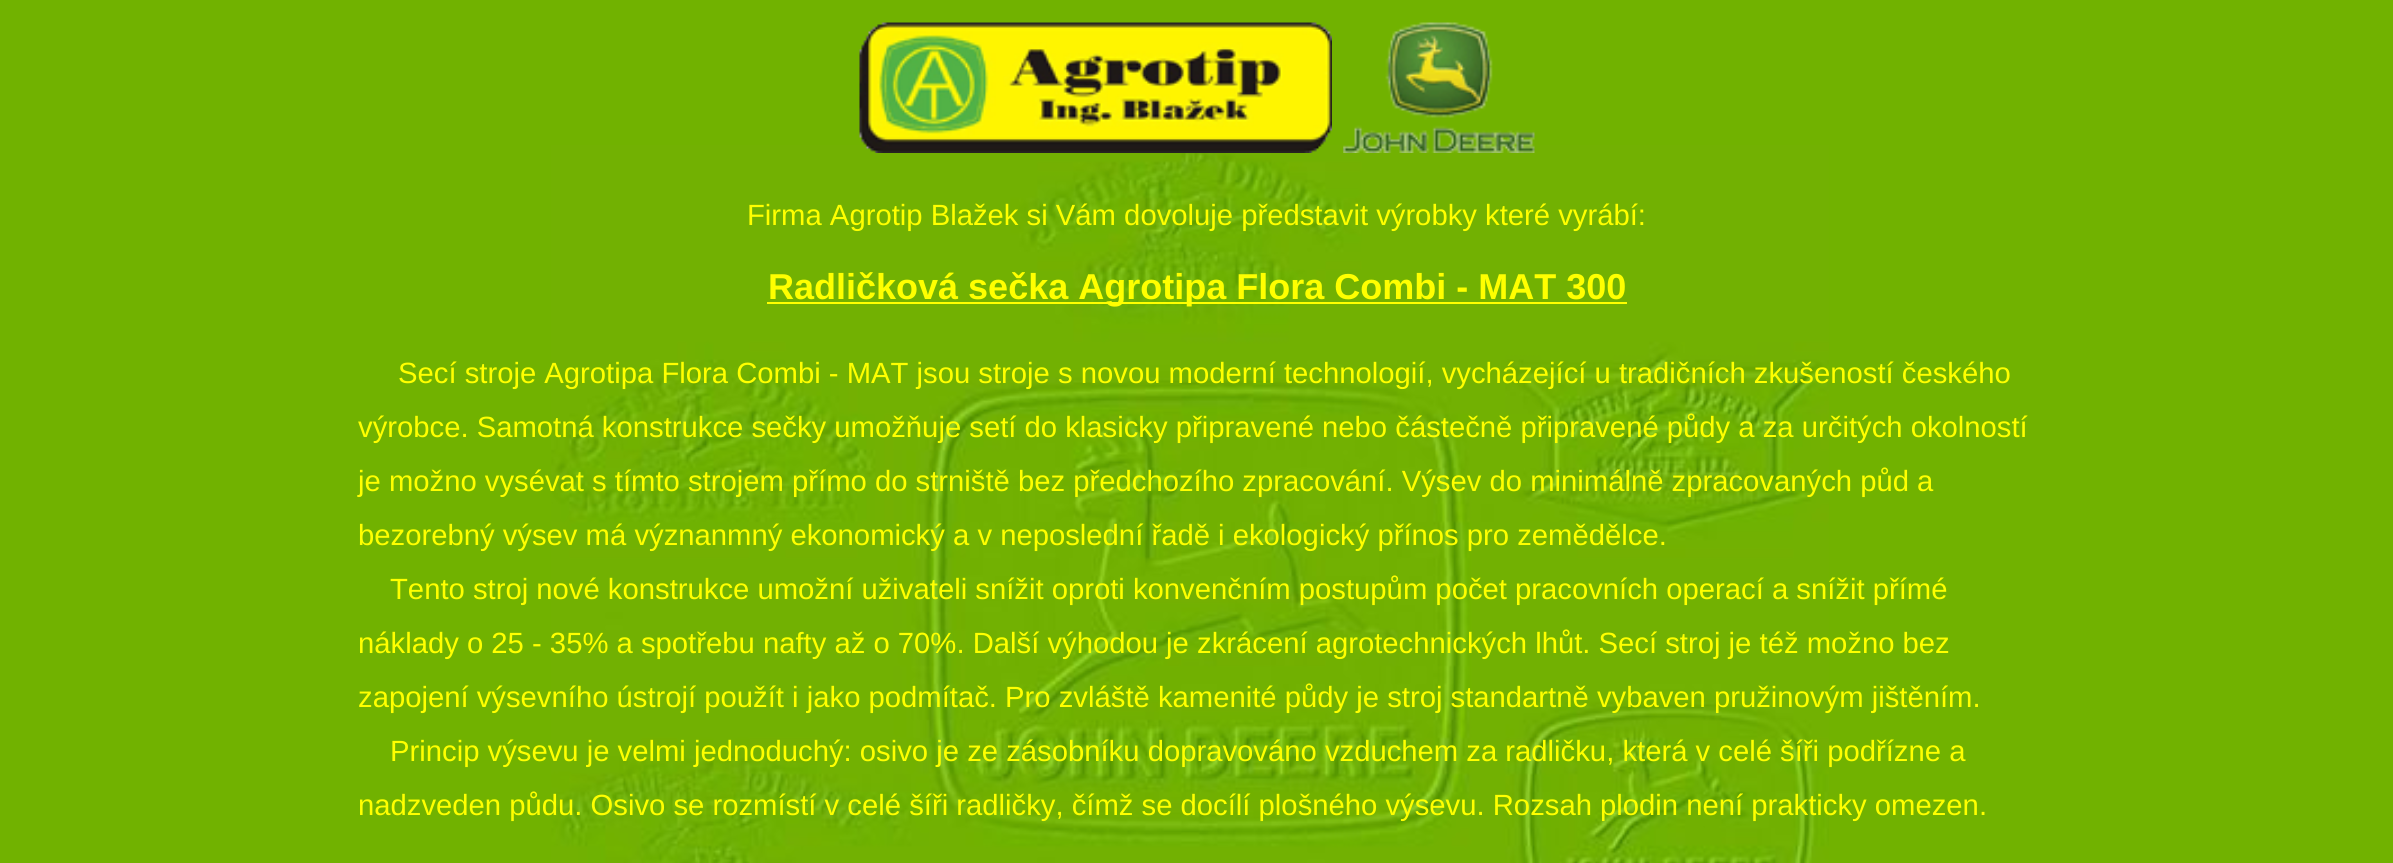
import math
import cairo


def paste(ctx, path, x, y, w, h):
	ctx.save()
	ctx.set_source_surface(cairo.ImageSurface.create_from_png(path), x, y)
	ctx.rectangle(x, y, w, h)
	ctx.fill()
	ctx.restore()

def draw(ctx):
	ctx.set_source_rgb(0.443, 0.698, 0)
	ctx.paint()
	paste(ctx, 'media/1.png', 551, 145, 1278, 718)
	paste(ctx, 'media/2.png', 859, 22, 473, 131)
	paste(ctx, 'media/3.png', 1343, 22, 192, 131)
	ctx.select_font_face('Liberation Sans')
	ctx.set_font_size(29.25)
	ctx.set_source_rgb(1, 1, 0)
	ctx.move_to(747, 225)
	ctx.show_text('Firma Agrotip Blažek si Vám dovoluje představit výrobky které vyrábí:')
	ctx.rectangle(767, 302, 860, 2)
	ctx.fill()
	ctx.select_font_face('Liberation Sans', cairo.FONT_SLANT_NORMAL, cairo.FONT_WEIGHT_BOLD)
	ctx.set_font_size(36)
	ctx.move_to(768, 299)
	ctx.show_text('Radličková sečka Agrotipa Flora Combi - MAT 300')
	ctx.select_font_face('Liberation Sans')
	ctx.set_font_size(29.25)
	for x, y, s in [
		(398, 383, 'Secí stroje Agrotipa Flora Combi - MAT jsou stroje s novou moderní technologií, vycházející u tradičních zkušeností českého'),
		(358, 437, 'výrobce. Samotná konstrukce sečky umožňuje setí do klasicky připravené nebo částečně připravené půdy a za určitých okolností'),
		(358, 491, 'je možno vysévat s tímto strojem přímo do strniště bez předchozího zpracování. Výsev do minimálně zpracovaných půd a'),
		(358, 545, 'bezorebný výsev má význanmný ekonomický a v neposlední řadě i ekologický přínos pro zemědělce.'),
		(390, 599, 'Tento stroj nové konstrukce umožní uživateli snížit oproti konvenčním postupům počet pracovních operací a snížit přímé'),
		(358, 653, 'náklady o 25 - 35% a spotřebu nafty až o 70%. Další výhodou je zkrácení agrotechnických lhůt. Secí stroj je též možno bez'),
		(358, 707, 'zapojení výsevního ústrojí použít i jako podmítač. Pro zvláště kamenité půdy je stroj standartně vybaven pružinovým jištěním.'),
		(390, 761, 'Princip výsevu je velmi jednoduchý: osivo je ze zásobníku dopravováno vzduchem za radličku, která v celé šíři podřízne a'),
		(358, 815, 'nadzveden půdu. Osivo se rozmístí v celé šíři radličky, čímž se docílí plošného výsevu. Rozsah plodin není prakticky omezen.'),
	]:
		ctx.move_to(x, y)
		ctx.show_text(s)


surface = cairo.ImageSurface(cairo.FORMAT_RGB24, 2393, 863)
ctx = cairo.Context(surface)
options = cairo.FontOptions()
options.set_hint_metrics(cairo.HINT_METRICS_OFF)
options.set_hint_style(cairo.HINT_STYLE_NONE)
ctx.set_font_options(options)
ctx.set_miter_limit(4)
draw(ctx)
surface.write_to_png('image.png')
